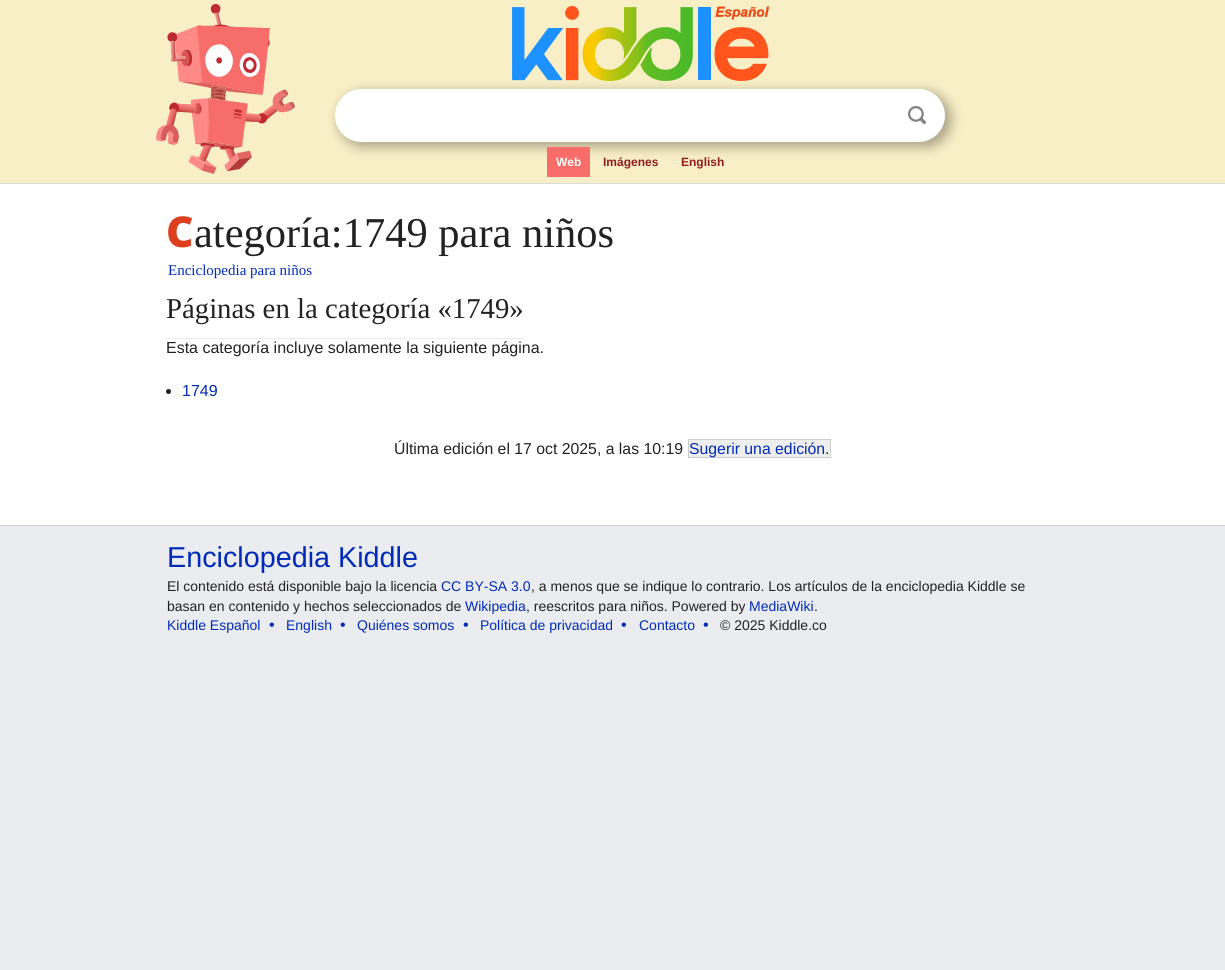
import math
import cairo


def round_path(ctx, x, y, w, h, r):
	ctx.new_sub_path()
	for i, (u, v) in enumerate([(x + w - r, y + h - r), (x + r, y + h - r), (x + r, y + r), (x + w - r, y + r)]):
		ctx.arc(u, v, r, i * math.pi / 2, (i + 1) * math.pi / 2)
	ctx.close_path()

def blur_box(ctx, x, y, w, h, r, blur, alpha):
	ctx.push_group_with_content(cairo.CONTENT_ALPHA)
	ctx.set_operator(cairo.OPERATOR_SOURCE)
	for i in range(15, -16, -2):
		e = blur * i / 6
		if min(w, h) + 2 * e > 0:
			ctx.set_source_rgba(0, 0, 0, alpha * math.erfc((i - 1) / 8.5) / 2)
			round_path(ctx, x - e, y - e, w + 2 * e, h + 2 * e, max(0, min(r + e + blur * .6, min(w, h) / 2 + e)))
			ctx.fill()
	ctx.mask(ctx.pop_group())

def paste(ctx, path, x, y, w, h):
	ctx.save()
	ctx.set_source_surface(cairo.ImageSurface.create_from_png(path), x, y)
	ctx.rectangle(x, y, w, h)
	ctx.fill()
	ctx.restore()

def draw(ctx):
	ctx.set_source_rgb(0.918, 0.925, 0.941)
	ctx.paint()
	ctx.set_source_rgb(0.973, 0.937, 0.776)
	ctx.rectangle(0, 0, 1225, 183)
	ctx.fill()
	ctx.set_source_rgb(0.867, 0.867, 0.867)
	ctx.rectangle(0, 183, 1225, 1)
	ctx.fill()
	paste(ctx, 'media/1.png', 156, 4, 139, 170)
	ctx.set_source_rgb(0, 0, 0)
	blur_box(ctx, 339, 92, 612, 55, 27.5, 6, 0.32)
	paste(ctx, 'media/2.png', 512, 6, 257, 75)
	ctx.set_source_rgb(1, 1, 1)
	round_path(ctx, 337, 91, 606, 49, 24.5)
	ctx.fill_preserve()
	ctx.set_line_width(4)
	ctx.stroke()
	paste(ctx, 'media/3.png', 908, 106, 18, 18)
	ctx.set_source_rgb(0.969, 0.427, 0.416)
	ctx.rectangle(547, 147, 43, 30)
	ctx.fill()
	ctx.select_font_face('Liberation Sans', cairo.FONT_SLANT_NORMAL, cairo.FONT_WEIGHT_BOLD)
	ctx.set_font_size(12)
	ctx.set_source_rgb(1, 1, 1)
	ctx.move_to(556, 166)
	ctx.show_text('Web')
	ctx.set_source_rgb(0.569, 0.11, 0.11)
	ctx.move_to(603, 166)
	ctx.show_text('Imágenes')
	ctx.move_to(681, 166)
	ctx.show_text('English')
	ctx.set_source_rgb(1, 1, 1)
	ctx.rectangle(0, 184, 1225, 341)
	ctx.fill()
	ctx.select_font_face('Noto Sans Black')
	ctx.set_font_size(42.5)
	ctx.set_source_rgb(0.867, 0.247, 0.118)
	ctx.move_to(166, 247)
	ctx.show_text('C')
	ctx.select_font_face('Liberation Serif')
	ctx.set_source_rgb(0.133, 0.133, 0.133)
	ctx.move_to(194, 247)
	ctx.show_text('ategoría:1749 para niños')
	ctx.set_font_size(15)
	ctx.set_source_rgb(0, 0.169, 0.722)
	ctx.move_to(168, 275)
	ctx.show_text('Enciclopedia para niños')
	ctx.set_font_size(28.75)
	ctx.set_source_rgb(0.133, 0.133, 0.133)
	ctx.move_to(166, 318)
	ctx.show_text('Páginas en la categoría «1749»')
	ctx.set_source_rgb(0.918, 0.925, 0.941)
	ctx.rectangle(166, 338, 358, 1)
	ctx.fill()
	ctx.select_font_face('Liberation Sans')
	ctx.set_font_size(16)
	ctx.set_source_rgb(0.133, 0.133, 0.133)
	ctx.move_to(166, 353)
	ctx.show_text('Esta categoría incluye solamente la siguiente página.')
	ctx.new_path()
	ctx.arc(168.5, 391.5, 2.5, 0, 2 * math.pi)
	ctx.fill()
	ctx.set_source_rgb(0, 0.169, 0.722)
	ctx.move_to(182, 396)
	ctx.show_text('1749')
	ctx.set_font_size(15.8)
	ctx.set_source_rgb(0.133, 0.133, 0.133)
	ctx.move_to(394, 454)
	ctx.show_text('Última edición el 17 oct 2025, a las 10:19')
	ctx.set_source_rgb(0.933, 0.933, 0.933)
	ctx.rectangle(689, 440, 136, 17)
	ctx.fill()
	ctx.set_source_rgb(0.8, 0.8, 0.8)
	ctx.rectangle(688, 457, 137, 1)
	ctx.fill()
	ctx.set_source_rgb(0, 0.169, 0.722)
	ctx.move_to(689, 454)
	ctx.show_text('Sugerir una edición')
	ctx.set_source_rgb(0.8, 0.8, 0.8)
	ctx.rectangle(688, 439, 137, 1)
	ctx.rectangle(688, 439, 1, 19)
	ctx.fill()
	ctx.set_source_rgb(0.933, 0.933, 0.933)
	ctx.rectangle(825, 439, 5, 19)
	ctx.fill()
	ctx.set_source_rgb(0.8, 0.8, 0.8)
	ctx.rectangle(825, 439, 6, 1)
	ctx.rectangle(830, 439, 1, 19)
	ctx.fill()
	ctx.set_source_rgb(0.133, 0.133, 0.133)
	ctx.move_to(825, 454)
	ctx.show_text('.')
	ctx.set_source_rgb(0.8, 0.8, 0.8)
	ctx.rectangle(825, 457, 6, 1)
	ctx.fill()
	ctx.set_source_rgb(0.784, 0.8, 0.82)
	ctx.rectangle(0, 525, 1225, 1)
	ctx.fill()
	ctx.set_font_size(28.75)
	ctx.set_source_rgb(0, 0.169, 0.722)
	ctx.move_to(167, 567)
	ctx.show_text('Enciclopedia Kiddle')
	ctx.set_font_size(14)
	ctx.set_source_rgb(0.133, 0.133, 0.133)
	ctx.move_to(167, 591)
	ctx.show_text('El contenido está disponible bajo la licencia')
	ctx.set_source_rgb(0, 0.169, 0.722)
	ctx.move_to(441, 591)
	ctx.show_text('CC BY-SA 3.0')
	ctx.set_source_rgb(0.133, 0.133, 0.133)
	ctx.move_to(531, 591)
	ctx.show_text(', a menos que se indique lo contrario. Los artículos de la enciclopedia Kiddle se')
	ctx.move_to(167, 611)
	ctx.show_text('basan en contenido y hechos seleccionados de')
	ctx.set_source_rgb(0, 0.169, 0.722)
	ctx.move_to(465, 611)
	ctx.show_text('Wikipedia')
	ctx.set_source_rgb(0.133, 0.133, 0.133)
	ctx.move_to(526, 611)
	ctx.show_text(', reescritos para niños. Powered by')
	ctx.set_source_rgb(0, 0.169, 0.722)
	ctx.move_to(749, 611)
	ctx.show_text('MediaWiki')
	ctx.set_source_rgb(0.133, 0.133, 0.133)
	ctx.move_to(814, 611)
	ctx.show_text('.')
	ctx.set_source_rgb(0, 0.169, 0.722)
	ctx.move_to(167, 630)
	ctx.show_text('Kiddle Español')
	ctx.set_font_size(16)
	ctx.move_to(269, 630)
	ctx.show_text('•')
	ctx.set_font_size(14)
	ctx.move_to(286, 630)
	ctx.show_text('English')
	ctx.set_font_size(16)
	ctx.move_to(340, 630)
	ctx.show_text('•')
	ctx.set_font_size(14)
	ctx.move_to(357, 630)
	ctx.show_text('Quiénes somos')
	ctx.set_font_size(16)
	ctx.move_to(463, 630)
	ctx.show_text('•')
	ctx.set_font_size(14)
	ctx.move_to(480, 630)
	ctx.show_text('Política de privacidad')
	ctx.set_font_size(16)
	ctx.move_to(621, 630)
	ctx.show_text('•')
	ctx.set_font_size(14)
	ctx.move_to(639, 630)
	ctx.show_text('Contacto')
	ctx.set_font_size(16)
	ctx.move_to(703, 630)
	ctx.show_text('•')
	ctx.set_font_size(14)
	ctx.set_source_rgb(0.133, 0.133, 0.133)
	ctx.move_to(720, 630)
	ctx.show_text('© 2025 Kiddle.co')


surface = cairo.ImageSurface(cairo.FORMAT_RGB24, 1225, 970)
ctx = cairo.Context(surface)
options = cairo.FontOptions()
options.set_hint_metrics(cairo.HINT_METRICS_OFF)
options.set_hint_style(cairo.HINT_STYLE_NONE)
ctx.set_font_options(options)
ctx.set_miter_limit(4)
draw(ctx)
surface.write_to_png('image.png')
